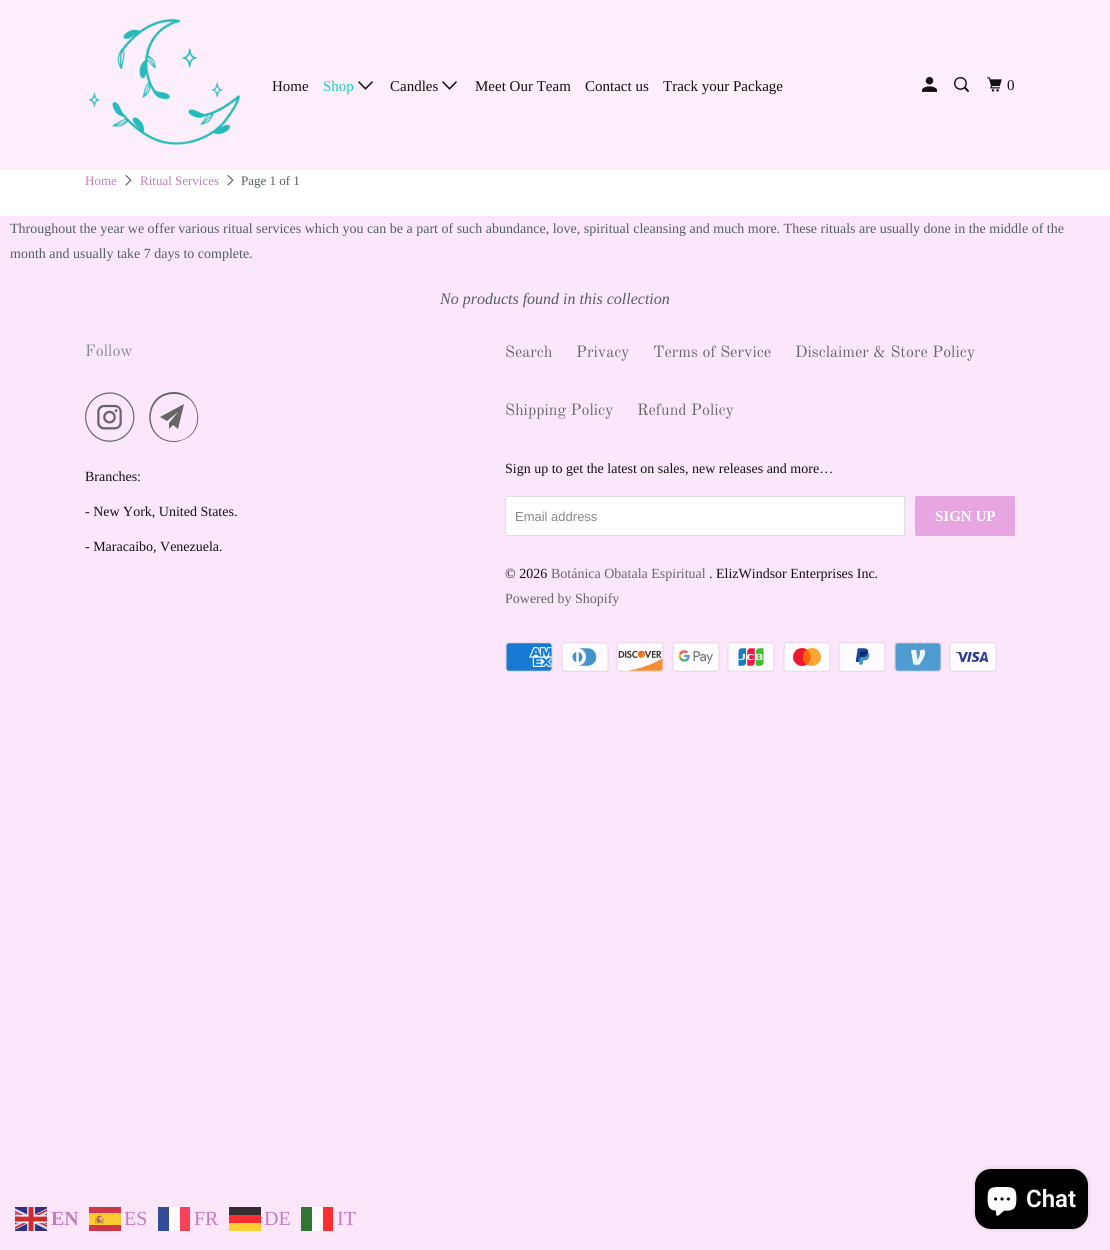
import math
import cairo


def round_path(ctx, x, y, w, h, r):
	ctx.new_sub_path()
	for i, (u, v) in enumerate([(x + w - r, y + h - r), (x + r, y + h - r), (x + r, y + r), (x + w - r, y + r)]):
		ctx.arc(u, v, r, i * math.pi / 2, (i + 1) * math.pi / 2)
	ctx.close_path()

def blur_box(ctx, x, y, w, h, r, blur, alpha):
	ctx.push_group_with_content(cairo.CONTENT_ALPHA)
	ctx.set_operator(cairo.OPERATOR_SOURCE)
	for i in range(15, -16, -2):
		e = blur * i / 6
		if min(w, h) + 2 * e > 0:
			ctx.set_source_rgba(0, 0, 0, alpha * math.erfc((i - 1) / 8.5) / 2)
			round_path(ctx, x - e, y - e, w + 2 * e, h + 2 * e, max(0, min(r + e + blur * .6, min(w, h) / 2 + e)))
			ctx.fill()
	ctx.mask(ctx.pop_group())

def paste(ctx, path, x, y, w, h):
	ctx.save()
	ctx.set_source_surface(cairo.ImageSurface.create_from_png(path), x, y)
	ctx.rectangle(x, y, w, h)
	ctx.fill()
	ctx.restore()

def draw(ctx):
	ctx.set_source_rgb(0.988, 0.906, 0.98)
	ctx.paint()
	ctx.set_source_rgb(1, 1, 1)
	ctx.rectangle(0, 170, 1110, 46)
	ctx.fill()
	ctx.set_source_rgb(0.992, 0.933, 0.988)
	ctx.rectangle(0, 0, 1110, 170)
	ctx.fill()
	paste(ctx, 'media/1.png', 89, 18, 152, 127)
	ctx.select_font_face('Liberation Serif')
	ctx.set_font_size(15)
	ctx.set_source_rgb(0.071, 0.063, 0.067)
	ctx.move_to(272, 91)
	ctx.show_text('Home')
	ctx.set_source_rgb(0.106, 0.812, 0.78)
	ctx.move_to(323, 91)
	ctx.show_text('Shop')
	paste(ctx, 'media/2.png', 358, 81, 15, 9)
	ctx.set_source_rgb(0.071, 0.063, 0.067)
	ctx.move_to(390, 91)
	ctx.show_text('Candles')
	paste(ctx, 'media/2.png', 442, 81, 15, 9)
	for x, y, s in [
		(475, 91, 'Meet Our Team'),
		(585, 91, 'Contact us'),
		(663, 91, 'Track your Package'),
	]:
		ctx.move_to(x, y)
		ctx.show_text(s)
	paste(ctx, 'media/3.png', 922, 76, 15, 16)
	paste(ctx, 'media/4.png', 954, 76, 15, 16)
	paste(ctx, 'media/5.png', 987, 77, 15, 15)
	ctx.move_to(1007, 90)
	ctx.show_text('0')
	ctx.set_font_size(13)
	ctx.set_source_rgb(0.769, 0.486, 0.741)
	ctx.move_to(85, 185)
	ctx.show_text('Home')
	paste(ctx, 'media/6.png', 125, 174, 7, 12)
	ctx.move_to(140, 185)
	ctx.show_text('Ritual Services')
	paste(ctx, 'media/6.png', 227, 174, 7, 12)
	ctx.set_source_rgb(0.322, 0.365, 0.388)
	ctx.move_to(241, 185)
	ctx.show_text('Page 1 of 1')
	ctx.set_font_size(14)
	ctx.move_to(10, 233)
	ctx.show_text('Throughout the year we offer various ritual services which you can be a part of such abundance, love, spiritual cleansing and much more. These rituals are usually done in the middle of the')
	ctx.set_source_rgb(0.949, 0.949, 0.949)
	ctx.rectangle(0, 251, 1110, 1)
	ctx.fill()
	ctx.set_source_rgb(0.322, 0.365, 0.388)
	ctx.move_to(10, 258)
	ctx.show_text('month and usually take 7 days to complete.')
	ctx.select_font_face('Liberation Serif', cairo.FONT_SLANT_ITALIC)
	ctx.set_font_size(16)
	ctx.move_to(440, 304)
	ctx.show_text('No products found in this collection')
	ctx.select_font_face('Old Standard TT')
	ctx.set_source_rgb(0.498, 0.549, 0.553)
	ctx.move_to(85, 356)
	ctx.show_text('Follow')
	paste(ctx, 'media/7.png', 85, 392, 50, 50)
	ctx.set_source_rgb(0.4, 0.4, 0.4)
	ctx.new_path()
	ctx.move_to(178, 429)
	ctx.line_to(173, 425)
	ctx.line_to(169, 429)
	ctx.line_to(169, 423)
	ctx.line_to(178, 412)
	ctx.line_to(167, 421)
	ctx.line_to(160, 417)
	ctx.line_to(184, 404)
	ctx.close_path()
	ctx.move_to(174, 394)
	ctx.curve_to(143, 394, 143, 441, 174, 441)
	ctx.curve_to(205, 441, 205, 394, 174, 394)
	ctx.close_path()
	ctx.move_to(174, 442)
	ctx.curve_to(141, 442, 141, 392, 174, 392)
	ctx.curve_to(197, 392, 207, 423, 189, 437)
	ctx.curve_to(184, 440, 179, 442, 174, 442)
	ctx.close_path()
	ctx.fill()
	ctx.select_font_face('Liberation Serif')
	ctx.set_font_size(14)
	ctx.set_source_rgb(0.071, 0.063, 0.067)
	for x, y, s in [
		(85, 481, 'Branches:'),
		(85, 516, '- New York, United States.'),
		(85, 551, '- Maracaibo, Venezuela.'),
	]:
		ctx.move_to(x, y)
		ctx.show_text(s)
	ctx.select_font_face('Old Standard TT')
	ctx.set_font_size(16)
	ctx.set_source_rgb(0.4, 0.4, 0.4)
	for x, y, s in [
		(505, 357, 'Search'),
		(576, 357, 'Privacy'),
		(653, 357, 'Terms of Service'),
		(795, 357, 'Disclaimer & Store Policy'),
		(505, 415, 'Shipping Policy'),
		(637, 415, 'Refund Policy'),
	]:
		ctx.move_to(x, y)
		ctx.show_text(s)
	ctx.select_font_face('Liberation Serif')
	ctx.set_font_size(14)
	ctx.set_source_rgb(0.071, 0.063, 0.067)
	ctx.move_to(505, 473)
	ctx.show_text('Sign up to get the latest on sales, new releases and more…')
	ctx.set_source_rgb(1, 1, 1)
	round_path(ctx, 505.5, 496.5, 399, 39, 1.5)
	ctx.fill_preserve()
	ctx.set_source_rgb(0.875, 0.875, 0.875)
	ctx.set_line_width(1)
	ctx.stroke()
	ctx.select_font_face('Liberation Sans')
	ctx.set_font_size(13)
	ctx.set_source_rgb(0.533, 0.533, 0.533)
	ctx.move_to(515, 521)
	ctx.show_text('Email address')
	ctx.set_source_rgb(0.906, 0.651, 0.882)
	round_path(ctx, 915, 496, 100, 40, 2)
	ctx.fill()
	ctx.select_font_face('Liberation Serif', cairo.FONT_SLANT_NORMAL, cairo.FONT_WEIGHT_BOLD)
	ctx.set_font_size(15)
	ctx.set_source_rgb(1, 1, 1)
	ctx.move_to(935, 521)
	ctx.show_text('SIGN UP')
	ctx.select_font_face('Liberation Serif')
	ctx.set_font_size(14)
	ctx.set_source_rgb(0.071, 0.063, 0.067)
	ctx.move_to(505, 578)
	ctx.show_text('© 2026')
	ctx.set_source_rgb(0.4, 0.4, 0.4)
	ctx.move_to(551, 578)
	ctx.show_text('Botánica Obatala Espiritual')
	ctx.set_source_rgb(0.071, 0.063, 0.067)
	ctx.move_to(709, 578)
	ctx.show_text('. ElizWindsor Enterprises Inc.')
	ctx.set_source_rgb(0.4, 0.4, 0.4)
	ctx.move_to(505, 603)
	ctx.show_text('Powered by Shopify')
	paste(ctx, 'media/8.png', 505, 642, 48, 30)
	paste(ctx, 'media/9.png', 561, 642, 48, 30)
	paste(ctx, 'media/10.png', 616, 642, 48, 30)
	paste(ctx, 'media/11.png', 672, 642, 48, 30)
	paste(ctx, 'media/12.png', 727, 642, 48, 30)
	paste(ctx, 'media/13.png', 783, 642, 48, 30)
	paste(ctx, 'media/14.png', 838, 642, 48, 30)
	paste(ctx, 'media/15.png', 894, 642, 48, 30)
	paste(ctx, 'media/16.png', 949, 642, 48, 30)
	paste(ctx, 'media/17.png', 15, 1207, 32, 24)
	ctx.select_font_face('Liberation Serif', cairo.FONT_SLANT_NORMAL, cairo.FONT_WEIGHT_BOLD)
	ctx.set_font_size(20)
	ctx.set_source_rgb(0.769, 0.486, 0.741)
	ctx.move_to(51, 1225)
	ctx.show_text('EN')
	paste(ctx, 'media/18.png', 89, 1207, 32, 24)
	ctx.select_font_face('Liberation Serif')
	ctx.move_to(124, 1225)
	ctx.show_text('ES')
	ctx.move_to(194, 1225)
	ctx.show_text('FR')
	ctx.set_source_rgb(0.996, 0.98, 0.996)
	ctx.rectangle(169, 1207, 11, 24)
	ctx.fill()
	ctx.set_source_rgb(0.196, 0.302, 0.596)
	ctx.rectangle(158, 1207, 11, 24)
	ctx.fill()
	ctx.set_source_rgb(0.961, 0.255, 0.345)
	ctx.rectangle(180, 1207, 10, 24)
	ctx.fill()
	ctx.set_source_rgb(0.769, 0.486, 0.741)
	ctx.move_to(264, 1225)
	ctx.show_text('DE')
	ctx.set_source_rgb(0.996, 0.82, 0.196)
	ctx.rectangle(229, 1223, 32, 8)
	ctx.fill()
	ctx.set_source_rgb(0.196, 0.18, 0.196)
	ctx.rectangle(229, 1207, 32, 8)
	ctx.fill()
	ctx.set_source_rgb(0.996, 0.18, 0.196)
	ctx.rectangle(229, 1215, 32, 8)
	ctx.fill()
	ctx.set_source_rgb(0.769, 0.486, 0.741)
	ctx.move_to(337, 1225)
	ctx.show_text('IT')
	ctx.set_source_rgb(0.996, 0.98, 0.996)
	ctx.rectangle(312, 1207, 11, 24)
	ctx.fill()
	ctx.set_source_rgb(0.196, 0.455, 0.196)
	ctx.rectangle(301, 1207, 11, 24)
	ctx.fill()
	ctx.set_source_rgb(0.988, 0.18, 0.196)
	ctx.rectangle(323, 1207, 10, 24)
	ctx.fill()
	ctx.set_source_rgb(0, 0, 0)
	blur_box(ctx, 975, 1169, 113, 60, 16, 2.5, 0.15)
	ctx.set_source_rgb(0, 0, 0)
	round_path(ctx, 975, 1169, 113, 60, 16)
	ctx.fill()
	paste(ctx, 'media/19.png', 987, 1187, 30, 29)
	ctx.select_font_face('Roboto SemiBold')
	ctx.set_font_size(24)
	ctx.set_source_rgb(1, 1, 1)
	ctx.move_to(1026, 1207)
	ctx.show_text('Chat')


surface = cairo.ImageSurface(cairo.FORMAT_RGB24, 1110, 1250)
ctx = cairo.Context(surface)
options = cairo.FontOptions()
options.set_hint_metrics(cairo.HINT_METRICS_OFF)
options.set_hint_style(cairo.HINT_STYLE_NONE)
ctx.set_font_options(options)
ctx.set_miter_limit(4)
draw(ctx)
surface.write_to_png('image.png')
